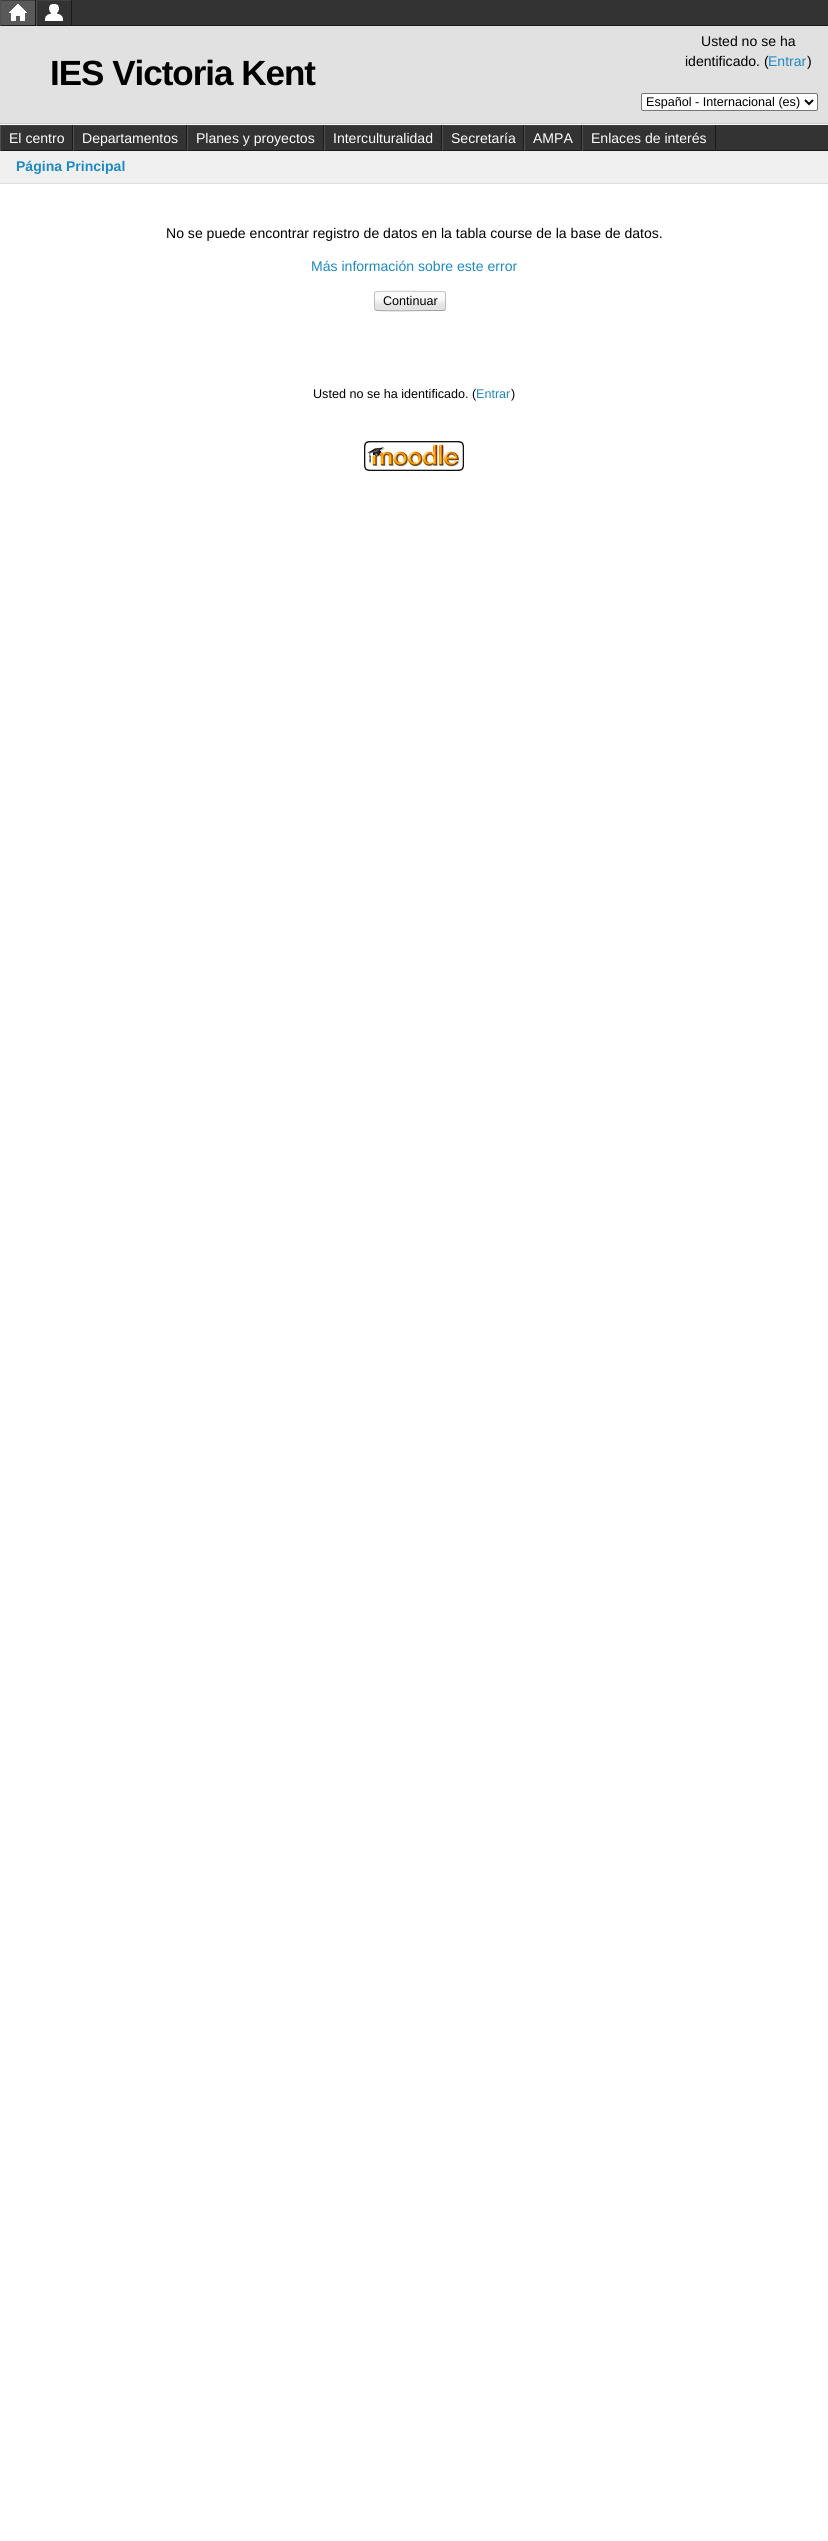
import math
import cairo


def write_spaced(ctx, x, y, s, letter, word):
	ctx.move_to(x, y)
	for ch in s:
		ctx.show_text(ch)
		ctx.rel_move_to(letter + word * (ch == ' '), 0)

def round_path(ctx, x, y, w, h, r):
	ctx.new_sub_path()
	for i, (u, v) in enumerate([(x + w - r, y + h - r), (x + r, y + h - r), (x + r, y + r), (x + w - r, y + r)]):
		ctx.arc(u, v, r, i * math.pi / 2, (i + 1) * math.pi / 2)
	ctx.close_path()

def paste(ctx, path, x, y, w, h):
	ctx.save()
	ctx.set_source_surface(cairo.ImageSurface.create_from_png(path), x, y)
	ctx.rectangle(x, y, w, h)
	ctx.fill()
	ctx.restore()

def draw(ctx):
	ctx.set_source_rgb(1, 1, 1)
	ctx.paint()
	ctx.set_source_rgb(0.2, 0.2, 0.2)
	ctx.rectangle(72, 0, 756, 25)
	ctx.fill()
	ctx.set_source_rgb(0.102, 0.102, 0.102)
	ctx.rectangle(72, 25, 756, 1)
	ctx.fill()
	ctx.set_source_rgb(0.349, 0.349, 0.349)
	ctx.rectangle(1, 1, 34, 24)
	ctx.fill()
	ctx.set_source_rgb(0.251, 0.251, 0.251)
	ctx.rectangle(0, 0, 72, 1)
	ctx.fill()
	ctx.set_source_rgb(0.102, 0.102, 0.102)
	ctx.rectangle(35, 0, 1, 26)
	ctx.rectangle(0, 25, 36, 1)
	ctx.fill()
	ctx.set_source_rgb(0.314, 0.314, 0.314)
	ctx.rectangle(0, 0, 1, 26)
	ctx.fill()
	paste(ctx, 'media/1.png', 9, 4, 18, 17)
	ctx.set_source_rgb(0.2, 0.2, 0.2)
	ctx.rectangle(37, 1, 34, 24)
	ctx.fill()
	ctx.set_source_rgb(0.102, 0.102, 0.102)
	ctx.rectangle(71, 0, 1, 26)
	ctx.rectangle(36, 25, 36, 1)
	ctx.fill()
	ctx.set_source_rgb(0.314, 0.314, 0.314)
	ctx.rectangle(36, 0, 1, 26)
	ctx.fill()
	paste(ctx, 'media/2.png', 45, 4, 18, 17)
	ctx.set_source_rgb(0.882, 0.882, 0.882)
	ctx.rectangle(0, 26, 828, 97)
	ctx.fill()
	paste(ctx, 'media/3.png', 0, 123, 828, 2)
	ctx.select_font_face('Liberation Sans', cairo.FONT_SLANT_NORMAL, cairo.FONT_WEIGHT_BOLD)
	ctx.set_font_size(35)
	ctx.set_source_rgb(0, 0, 0)
	write_spaced(ctx, 50, 85, 'IES Victoria Kent', -1, 0)
	ctx.select_font_face('Liberation Sans')
	ctx.set_font_size(14.05)
	ctx.move_to(701, 46)
	ctx.show_text('Usted no se ha')
	ctx.move_to(685, 66)
	ctx.show_text('identificado. (')
	ctx.set_source_rgb(0.114, 0.541, 0.765)
	ctx.move_to(768, 66)
	ctx.show_text('Entrar')
	ctx.set_source_rgb(0, 0, 0)
	ctx.move_to(807, 66)
	ctx.show_text(')')
	ctx.set_source_rgb(1, 1, 1)
	round_path(ctx, 641.5, 93.5, 176, 17, 1.5)
	ctx.fill_preserve()
	ctx.set_source_rgb(0.463, 0.463, 0.463)
	ctx.set_line_width(1)
	ctx.stroke()
	ctx.new_path()
	ctx.move_to(805, 100)
	ctx.line_to(809, 104)
	ctx.line_to(813, 100)
	ctx.set_source_rgb(0, 0, 0)
	ctx.set_line_width(2)
	ctx.stroke()
	ctx.set_font_size(12.6)
	ctx.move_to(646, 106)
	ctx.show_text('Español - Internacional (es)')
	ctx.set_source_rgb(0.2, 0.2, 0.2)
	ctx.rectangle(716, 125, 112, 25)
	ctx.fill()
	ctx.set_source_rgb(0.102, 0.102, 0.102)
	ctx.rectangle(716, 150, 112, 1)
	ctx.fill()
	ctx.set_source_rgb(0.2, 0.2, 0.2)
	ctx.rectangle(1, 126, 71, 24)
	ctx.fill()
	ctx.set_source_rgb(0.251, 0.251, 0.251)
	ctx.rectangle(0, 125, 716, 1)
	ctx.fill()
	ctx.set_source_rgb(0.102, 0.102, 0.102)
	ctx.rectangle(72, 125, 1, 26)
	ctx.rectangle(0, 150, 73, 1)
	ctx.fill()
	ctx.set_source_rgb(0.314, 0.314, 0.314)
	ctx.rectangle(0, 125, 1, 26)
	ctx.fill()
	ctx.set_font_size(14.05)
	ctx.set_source_rgb(1, 1, 1)
	ctx.move_to(9, 143)
	ctx.show_text('El centro')
	ctx.set_source_rgb(0.2, 0.2, 0.2)
	ctx.rectangle(74, 126, 112, 24)
	ctx.fill()
	ctx.set_source_rgb(0.102, 0.102, 0.102)
	ctx.rectangle(186, 125, 1, 26)
	ctx.rectangle(73, 150, 114, 1)
	ctx.fill()
	ctx.set_source_rgb(0.314, 0.314, 0.314)
	ctx.rectangle(73, 125, 1, 26)
	ctx.fill()
	ctx.set_source_rgb(1, 1, 1)
	ctx.move_to(82, 143)
	ctx.show_text('Departamentos')
	ctx.set_source_rgb(0.2, 0.2, 0.2)
	ctx.rectangle(188, 126, 135, 24)
	ctx.fill()
	ctx.set_source_rgb(0.102, 0.102, 0.102)
	ctx.rectangle(323, 125, 1, 26)
	ctx.rectangle(187, 150, 137, 1)
	ctx.fill()
	ctx.set_source_rgb(0.314, 0.314, 0.314)
	ctx.rectangle(187, 125, 1, 26)
	ctx.fill()
	ctx.set_source_rgb(1, 1, 1)
	ctx.move_to(196, 143)
	ctx.show_text('Planes y proyectos')
	ctx.set_source_rgb(0.2, 0.2, 0.2)
	ctx.rectangle(325, 126, 116, 24)
	ctx.fill()
	ctx.set_source_rgb(0.102, 0.102, 0.102)
	ctx.rectangle(441, 125, 1, 26)
	ctx.rectangle(324, 150, 118, 1)
	ctx.fill()
	ctx.set_source_rgb(0.314, 0.314, 0.314)
	ctx.rectangle(324, 125, 1, 26)
	ctx.fill()
	ctx.set_source_rgb(1, 1, 1)
	ctx.move_to(333, 143)
	ctx.show_text('Interculturalidad')
	ctx.set_source_rgb(0.2, 0.2, 0.2)
	ctx.rectangle(443, 126, 80, 24)
	ctx.fill()
	ctx.set_source_rgb(0.102, 0.102, 0.102)
	ctx.rectangle(523, 125, 1, 26)
	ctx.rectangle(442, 150, 82, 1)
	ctx.fill()
	ctx.set_source_rgb(0.314, 0.314, 0.314)
	ctx.rectangle(442, 125, 1, 26)
	ctx.fill()
	ctx.set_source_rgb(1, 1, 1)
	ctx.move_to(451, 143)
	ctx.show_text('Secretaría')
	ctx.set_source_rgb(0.2, 0.2, 0.2)
	ctx.rectangle(525, 126, 56, 24)
	ctx.fill()
	ctx.set_source_rgb(0.102, 0.102, 0.102)
	ctx.rectangle(581, 125, 1, 26)
	ctx.rectangle(524, 150, 58, 1)
	ctx.fill()
	ctx.set_source_rgb(0.314, 0.314, 0.314)
	ctx.rectangle(524, 125, 1, 26)
	ctx.fill()
	ctx.set_source_rgb(1, 1, 1)
	ctx.move_to(533, 143)
	ctx.show_text('AMPA')
	ctx.set_source_rgb(0.2, 0.2, 0.2)
	ctx.rectangle(583, 126, 132, 24)
	ctx.fill()
	ctx.set_source_rgb(0.102, 0.102, 0.102)
	ctx.rectangle(715, 125, 1, 26)
	ctx.rectangle(582, 150, 134, 1)
	ctx.fill()
	ctx.set_source_rgb(0.314, 0.314, 0.314)
	ctx.rectangle(582, 125, 1, 26)
	ctx.fill()
	ctx.set_source_rgb(1, 1, 1)
	ctx.move_to(591, 143)
	ctx.show_text('Enlaces de interés')
	ctx.set_source_rgb(0.941, 0.941, 0.941)
	ctx.rectangle(0, 151, 828, 32)
	ctx.fill()
	ctx.set_source_rgb(0.867, 0.867, 0.867)
	ctx.rectangle(0, 183, 828, 1)
	ctx.fill()
	ctx.select_font_face('Liberation Sans', cairo.FONT_SLANT_NORMAL, cairo.FONT_WEIGHT_BOLD)
	ctx.set_source_rgb(0.114, 0.541, 0.765)
	ctx.move_to(16, 171)
	ctx.show_text('Página Principal')
	ctx.select_font_face('Liberation Sans')
	ctx.set_source_rgb(0, 0, 0)
	ctx.move_to(166, 238)
	ctx.show_text('No se puede encontrar registro de datos en la tabla course de la base de datos.')
	ctx.set_source_rgb(0.114, 0.541, 0.765)
	ctx.move_to(311, 271)
	ctx.show_text('Más información sobre este error')
	ctx.save()
	round_path(ctx, 374, 291, 72, 20, 3)
	ctx.clip()
	gradient = cairo.LinearGradient(375, 281, 375, 287)
	gradient.add_color_stop_rgba(0, 0.976, 0.976, 0.976, 1)
	gradient.add_color_stop_rgba(1, 0.89, 0.89, 0.89, 1)
	ctx.set_source(gradient)
	ctx.rectangle(374, 291, 72, 1)
	ctx.fill()
	gradient = cairo.LinearGradient(375, 299, 375, 305)
	gradient.add_color_stop_rgba(0, 0.976, 0.976, 0.976, 1)
	gradient.add_color_stop_rgba(1, 0.89, 0.89, 0.89, 1)
	ctx.set_source(gradient)
	ctx.rectangle(374, 292, 72, 18)
	ctx.fill()
	gradient = cairo.LinearGradient(375, 317, 375, 323)
	gradient.add_color_stop_rgba(0, 0.976, 0.976, 0.976, 1)
	gradient.add_color_stop_rgba(1, 0.89, 0.89, 0.89, 1)
	ctx.set_source(gradient)
	ctx.rectangle(374, 310, 72, 1)
	ctx.fill()
	ctx.restore()
	ctx.new_path()
	ctx.move_to(375, 292)
	ctx.line_to(375.5, 292)
	ctx.curve_to(377.5, 290.5, 425.5, 291.5, 432, 291.5)
	ctx.line_to(443, 291.5)
	ctx.line_to(445, 292)
	ctx.set_source_rgb(0.8, 0.8, 0.8)
	ctx.set_line_width(1)
	ctx.stroke()
	ctx.new_path()
	ctx.move_to(445, 292)
	ctx.curve_to(446, 293.5, 445.5, 299, 445.5, 301)
	ctx.curve_to(445.5, 303, 446, 308.5, 445, 310)
	ctx.set_source_rgb(0.733, 0.733, 0.733)
	ctx.stroke()
	ctx.new_path()
	ctx.move_to(445, 310)
	ctx.line_to(443, 310.5)
	ctx.line_to(432, 310.5)
	ctx.curve_to(425.5, 310.5, 377.5, 311.5, 375.5, 310)
	ctx.line_to(375, 310)
	ctx.set_source_rgb(0.627, 0.627, 0.627)
	ctx.stroke()
	ctx.new_path()
	ctx.move_to(375, 310)
	ctx.curve_to(374, 308.5, 374.5, 303, 374.5, 301)
	ctx.curve_to(374.5, 299, 374, 293.5, 375, 292)
	ctx.set_source_rgb(0.733, 0.733, 0.733)
	ctx.stroke()
	ctx.set_font_size(12.6)
	ctx.set_source_rgb(0, 0, 0)
	ctx.move_to(383, 305)
	ctx.show_text('Continuar')
	ctx.move_to(313, 398)
	ctx.show_text('Usted no se ha identificado. (')
	ctx.set_source_rgb(0.114, 0.541, 0.765)
	ctx.move_to(476, 398)
	ctx.show_text('Entrar')
	ctx.set_source_rgb(0, 0, 0)
	ctx.move_to(511, 398)
	ctx.show_text(')')
	paste(ctx, 'media/4.png', 364, 441, 100, 30)


surface = cairo.ImageSurface(cairo.FORMAT_RGB24, 828, 2541)
ctx = cairo.Context(surface)
options = cairo.FontOptions()
options.set_hint_metrics(cairo.HINT_METRICS_OFF)
options.set_hint_style(cairo.HINT_STYLE_NONE)
ctx.set_font_options(options)
ctx.set_miter_limit(4)
draw(ctx)
surface.write_to_png('image.png')
